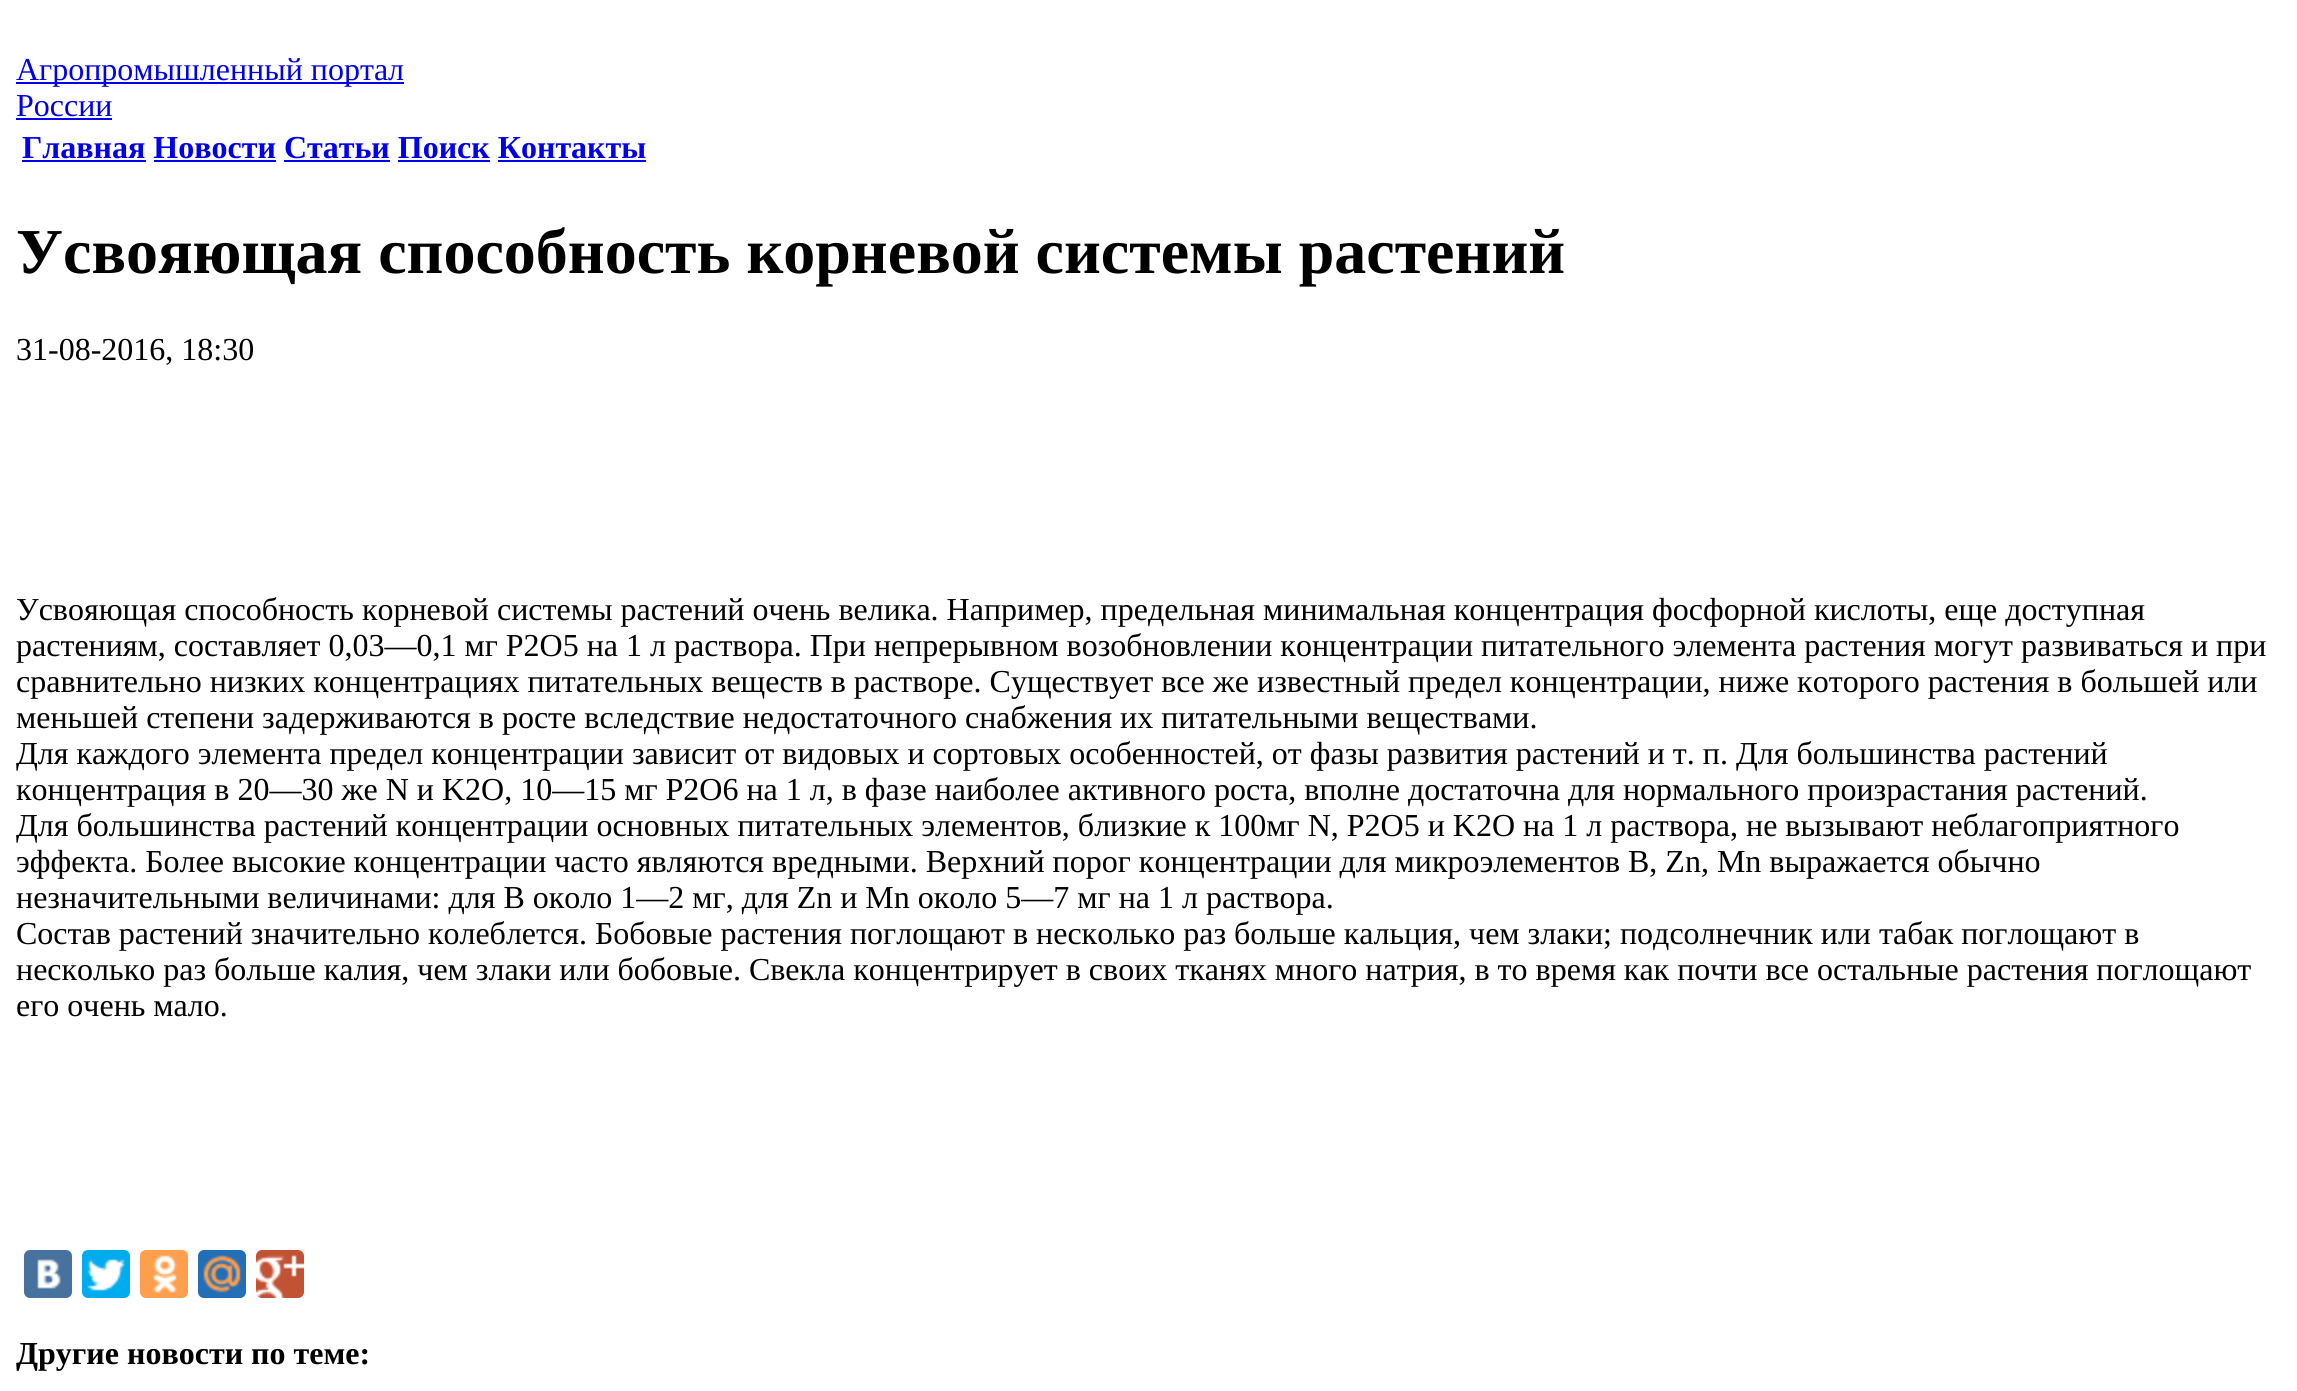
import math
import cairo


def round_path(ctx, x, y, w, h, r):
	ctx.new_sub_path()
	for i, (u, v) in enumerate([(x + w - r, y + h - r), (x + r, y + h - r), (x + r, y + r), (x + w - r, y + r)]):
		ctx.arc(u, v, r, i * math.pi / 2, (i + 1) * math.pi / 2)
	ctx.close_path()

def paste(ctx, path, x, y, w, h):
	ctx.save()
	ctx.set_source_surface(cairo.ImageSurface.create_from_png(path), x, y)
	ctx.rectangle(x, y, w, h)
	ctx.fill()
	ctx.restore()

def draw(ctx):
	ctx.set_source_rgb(1, 1, 1)
	ctx.paint()
	ctx.set_source_rgb(0, 0, 0.933)
	ctx.rectangle(16, 82, 388, 2)
	ctx.fill()
	ctx.select_font_face('Liberation Serif')
	ctx.set_font_size(32)
	ctx.move_to(16, 80)
	ctx.show_text('Агропромышленный портал')
	ctx.move_to(16, 116)
	ctx.show_text('России')
	ctx.rectangle(16, 118, 96, 2)
	ctx.fill()
	ctx.select_font_face('Liberation Serif', cairo.FONT_SLANT_NORMAL, cairo.FONT_WEIGHT_BOLD)
	ctx.move_to(22, 158)
	ctx.show_text('Главная Новости Статьи Поиск Контакты')
	ctx.rectangle(22, 160, 124, 2)
	ctx.rectangle(154, 160, 122, 2)
	ctx.rectangle(284, 160, 106, 2)
	ctx.rectangle(398, 160, 92, 2)
	ctx.rectangle(498, 160, 148, 2)
	ctx.fill()
	ctx.set_font_size(64)
	ctx.set_source_rgb(0, 0, 0)
	ctx.move_to(16, 273)
	ctx.show_text('Усвояющая способность корневой системы растений')
	ctx.select_font_face('Liberation Serif')
	ctx.set_font_size(32)
	for x, y, s in [
		(16, 360, '31-08-2016, 18:30'),
		(16, 620, 'Усвояющая способность корневой системы растений очень велика. Например, предельная минимальная концентрация фосфорной кислоты, еще доступная'),
		(16, 656, 'растениям, составляет 0,03—0,1 мг P2O5 на 1 л раствора. При непрерывном возобновлении концентрации питательного элемента растения могут развиваться и при'),
		(16, 692, 'сравнительно низких концентрациях питательных веществ в растворе. Существует все же известный предел концентрации, ниже которого растения в большей или'),
		(16, 728, 'меньшей степени задерживаются в росте вследствие недостаточного снабжения их питательными веществами.'),
		(16, 764, 'Для каждого элемента предел концентрации зависит от видовых и сортовых особенностей, от фазы развития растений и т. п. Для большинства растений'),
		(16, 800, 'концентрация в 20—30 же N и K2O, 10—15 мг P2O6 на 1 л, в фазе наиболее активного роста, вполне достаточна для нормального произрастания растений.'),
		(16, 836, 'Для большинства растений концентрации основных питательных элементов, близкие к 100мг N, P2O5 и K2O на 1 л раствора, не вызывают неблагоприятного'),
		(16, 872, 'эффекта. Более высокие концентрации часто являются вредными. Верхний порог концентрации для микроэлементов В, Zn, Mn выражается обычно'),
		(16, 908, 'незначительными величинами: для В около 1—2 мг, для Zn и Mn около 5—7 мг на 1 л раствора.'),
		(16, 944, 'Состав растений значительно колеблется. Бобовые растения поглощают в несколько раз больше кальция, чем злаки; подсолнечник или табак поглощают в'),
		(16, 980, 'несколько раз больше калия, чем злаки или бобовые. Свекла концентрирует в своих тканях много натрия, в то время как почти все остальные растения поглощают'),
		(16, 1016, 'его очень мало.'),
	]:
		ctx.move_to(x, y)
		ctx.show_text(s)
	ctx.set_source_rgb(0.282, 0.447, 0.62)
	round_path(ctx, 24, 1250, 48, 48, 6)
	ctx.fill()
	paste(ctx, 'media/1.png', 37, 1259, 24, 30)
	ctx.set_source_rgb(0, 0.675, 0.929)
	round_path(ctx, 82, 1250, 48, 48, 6)
	ctx.fill()
	paste(ctx, 'media/2.png', 87, 1259, 38, 32)
	ctx.set_source_rgb(1, 0.624, 0.302)
	round_path(ctx, 140, 1250, 48, 48, 6)
	ctx.fill()
	paste(ctx, 'media/3.png', 153, 1255, 24, 38)
	ctx.set_source_rgb(0.133, 0.431, 0.718)
	round_path(ctx, 198, 1250, 48, 48, 6)
	ctx.fill()
	paste(ctx, 'media/4.png', 203, 1255, 38, 38)
	ctx.set_source_rgb(0.761, 0.322, 0.204)
	round_path(ctx, 256, 1250, 48, 48, 6)
	ctx.fill()
	paste(ctx, 'media/5.png', 256, 1255, 48, 43)
	ctx.select_font_face('Liberation Serif', cairo.FONT_SLANT_NORMAL, cairo.FONT_WEIGHT_BOLD)
	ctx.set_source_rgb(0, 0, 0)
	ctx.move_to(16, 1364)
	ctx.show_text('Другие новости по теме:')


surface = cairo.ImageSurface(cairo.FORMAT_RGB24, 2297, 1391)
ctx = cairo.Context(surface)
options = cairo.FontOptions()
options.set_hint_metrics(cairo.HINT_METRICS_OFF)
options.set_hint_style(cairo.HINT_STYLE_NONE)
ctx.set_font_options(options)
ctx.set_miter_limit(4)
draw(ctx)
surface.write_to_png('image.png')
